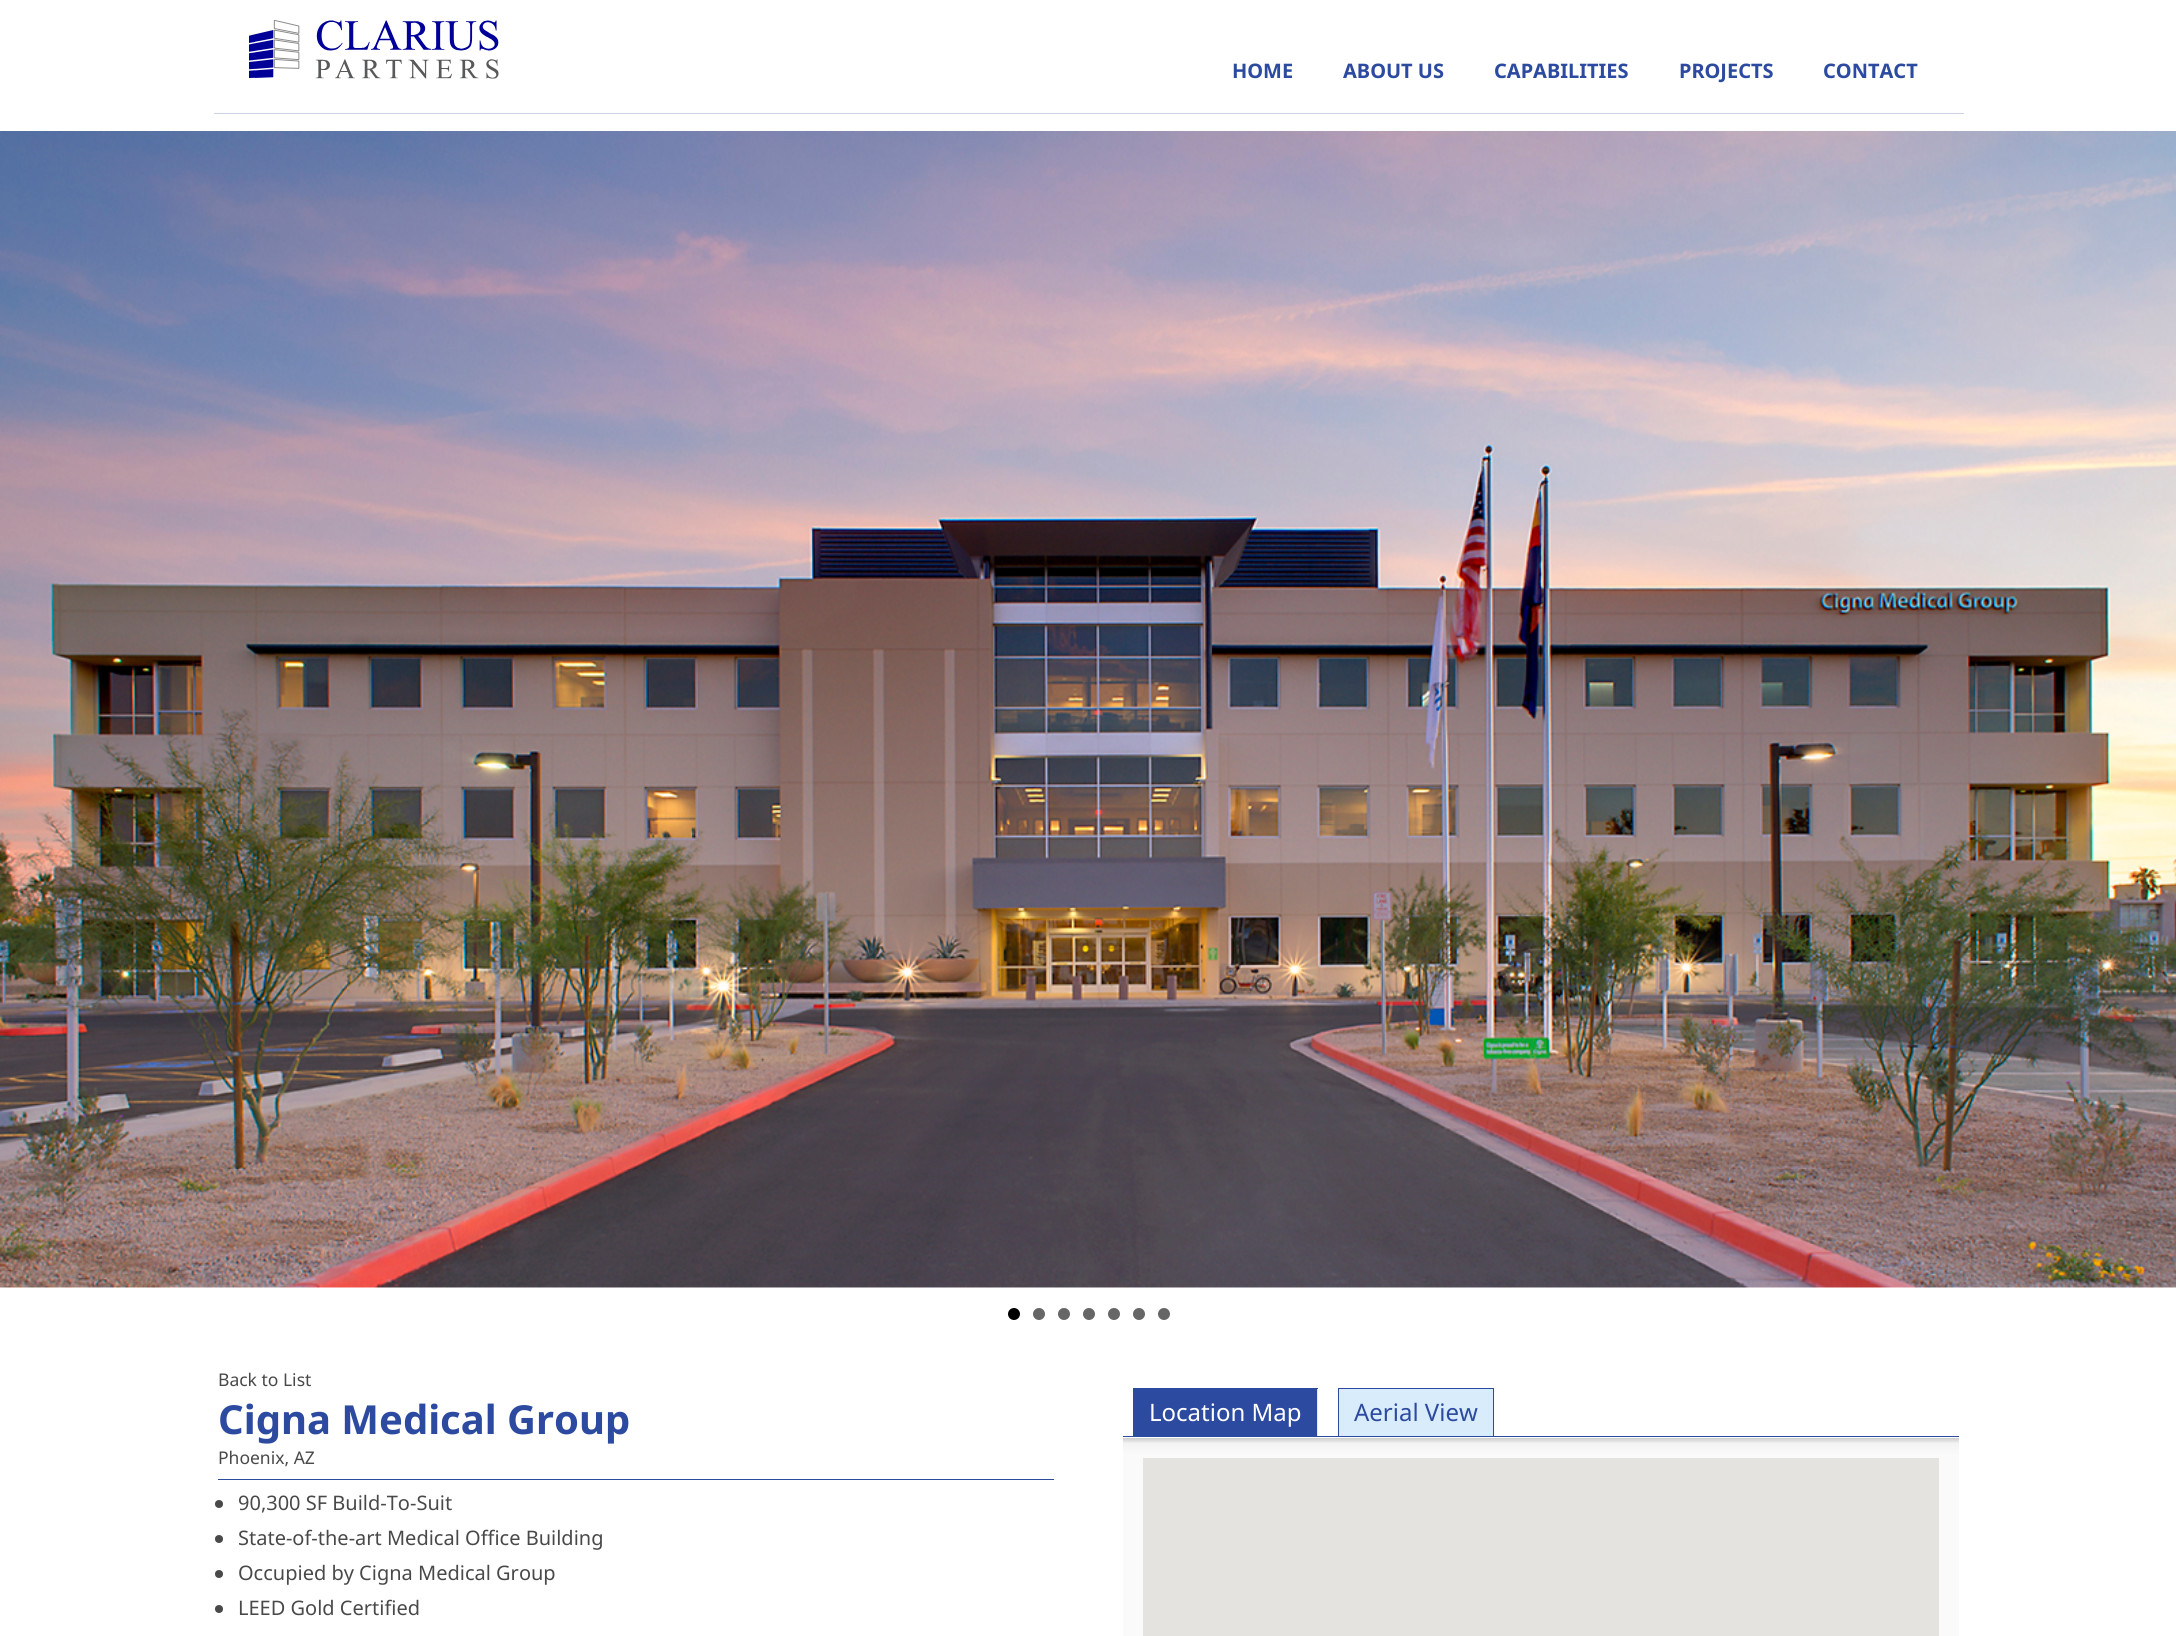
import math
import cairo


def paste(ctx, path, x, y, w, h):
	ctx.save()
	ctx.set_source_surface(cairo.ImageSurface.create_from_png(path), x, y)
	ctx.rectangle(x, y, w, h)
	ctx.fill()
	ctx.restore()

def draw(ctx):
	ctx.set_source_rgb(1, 1, 1)
	ctx.paint()
	ctx.set_source_rgb(0.792, 0.824, 0.906)
	ctx.rectangle(214, 113, 1750, 1)
	ctx.fill()
	paste(ctx, 'media/1.png', 249, 20, 250, 59)
	ctx.select_font_face('Noto Sans', cairo.FONT_SLANT_NORMAL, cairo.FONT_WEIGHT_BOLD)
	ctx.set_font_size(20)
	ctx.set_source_rgb(0.173, 0.29, 0.624)
	for x, y, s in [
		(1232, 78, 'HOME'),
		(1343, 78, 'ABOUT US'),
		(1494, 78, 'CAPABILITIES'),
		(1679, 78, 'PROJECTS'),
		(1823, 78, 'CONTACT'),
	]:
		ctx.move_to(x, y)
		ctx.show_text(s)
	paste(ctx, 'media/2.png', 0, 131, 2176, 1157)
	ctx.set_source_rgb(0, 0, 0)
	ctx.arc(1014, 1314, 6, 0, 2 * math.pi)
	ctx.fill()
	ctx.set_source_rgb(0.4, 0.4, 0.4)
	ctx.arc(1039, 1314, 6, 0, 2 * math.pi)
	ctx.fill()
	ctx.arc(1064, 1314, 6, 0, 2 * math.pi)
	ctx.fill()
	ctx.arc(1089, 1314, 6, 0, 2 * math.pi)
	ctx.fill()
	ctx.arc(1114, 1314, 6, 0, 2 * math.pi)
	ctx.fill()
	ctx.arc(1139, 1314, 6, 0, 2 * math.pi)
	ctx.fill()
	ctx.arc(1164, 1314, 6, 0, 2 * math.pi)
	ctx.fill()
	ctx.select_font_face('Noto Sans')
	ctx.set_font_size(17.5)
	ctx.set_source_rgb(0.286, 0.286, 0.286)
	ctx.move_to(218, 1386)
	ctx.show_text('Back to List')
	ctx.select_font_face('Noto Sans', cairo.FONT_SLANT_NORMAL, cairo.FONT_WEIGHT_BOLD)
	ctx.set_font_size(40)
	ctx.set_source_rgb(0.173, 0.29, 0.624)
	ctx.move_to(218, 1434)
	ctx.show_text('Cigna Medical Group')
	ctx.rectangle(218, 1479, 836, 1)
	ctx.fill()
	ctx.select_font_face('Noto Sans')
	ctx.set_font_size(17.5)
	ctx.set_source_rgb(0.286, 0.286, 0.286)
	ctx.move_to(218, 1464)
	ctx.show_text('Phoenix, AZ')
	ctx.new_path()
	ctx.arc(219, 1504, 4, 0, 2 * math.pi)
	ctx.fill()
	ctx.set_font_size(20)
	ctx.move_to(238, 1510)
	ctx.show_text('90,300 SF Build-To-Suit')
	ctx.new_path()
	ctx.arc(219, 1539, 4, 0, 2 * math.pi)
	ctx.fill()
	ctx.move_to(238, 1545)
	ctx.show_text('State-of-the-art Medical Office Building')
	ctx.new_path()
	ctx.arc(219, 1574, 4, 0, 2 * math.pi)
	ctx.fill()
	ctx.move_to(238, 1580)
	ctx.show_text('Occupied by Cigna Medical Group')
	ctx.new_path()
	ctx.arc(219, 1609, 4, 0, 2 * math.pi)
	ctx.fill()
	ctx.move_to(238, 1615)
	ctx.show_text('LEED Gold Certified')
	ctx.set_source_rgb(0.173, 0.29, 0.624)
	ctx.rectangle(1123, 1436, 836, 1)
	ctx.fill()
	ctx.set_source_rgb(0.851, 0.925, 0.988)
	ctx.rectangle(1317, 1389, 1, 47)
	ctx.fill()
	ctx.set_source_rgb(0.173, 0.29, 0.624)
	ctx.rectangle(1133, 1388, 185, 1)
	ctx.rectangle(1316, 1388, 1, 48)
	ctx.rectangle(1133, 1388, 1, 48)
	ctx.rectangle(1134, 1389, 182, 47)
	ctx.fill()
	ctx.set_font_size(24)
	ctx.set_source_rgb(1, 1, 1)
	ctx.move_to(1149, 1421)
	ctx.show_text('Location Map')
	ctx.set_source_rgb(0.851, 0.925, 0.988)
	ctx.rectangle(1339, 1389, 154, 47)
	ctx.fill()
	ctx.set_source_rgb(0.173, 0.29, 0.624)
	ctx.rectangle(1338, 1388, 156, 1)
	ctx.rectangle(1493, 1388, 1, 48)
	ctx.rectangle(1338, 1388, 1, 48)
	ctx.fill()
	ctx.move_to(1354, 1421)
	ctx.show_text('Aerial View')
	gradient = cairo.LinearGradient(1541, 1438, 1541, 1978)
	gradient.add_color_stop_rgba(0, 0.8, 0.8, 0.8, 1)
	gradient.add_color_stop_rgba(0.01, 0.953, 0.953, 0.953, 1)
	gradient.add_color_stop_rgba(0.03, 0.98, 0.98, 0.98, 1)
	ctx.set_source(gradient)
	ctx.rectangle(1123, 1438, 836, 198)
	ctx.fill()
	ctx.set_source_rgb(0.898, 0.89, 0.875)
	ctx.rectangle(1143, 1458, 796, 178)
	ctx.fill()


surface = cairo.ImageSurface(cairo.FORMAT_RGB24, 2176, 1636)
ctx = cairo.Context(surface)
options = cairo.FontOptions()
options.set_hint_metrics(cairo.HINT_METRICS_OFF)
options.set_hint_style(cairo.HINT_STYLE_NONE)
ctx.set_font_options(options)
ctx.set_miter_limit(4)
draw(ctx)
surface.write_to_png('image.png')
